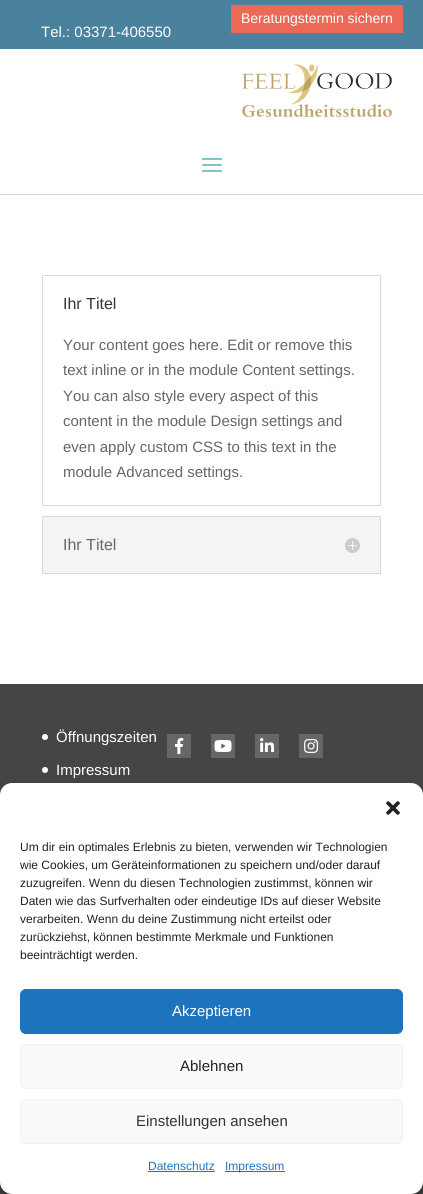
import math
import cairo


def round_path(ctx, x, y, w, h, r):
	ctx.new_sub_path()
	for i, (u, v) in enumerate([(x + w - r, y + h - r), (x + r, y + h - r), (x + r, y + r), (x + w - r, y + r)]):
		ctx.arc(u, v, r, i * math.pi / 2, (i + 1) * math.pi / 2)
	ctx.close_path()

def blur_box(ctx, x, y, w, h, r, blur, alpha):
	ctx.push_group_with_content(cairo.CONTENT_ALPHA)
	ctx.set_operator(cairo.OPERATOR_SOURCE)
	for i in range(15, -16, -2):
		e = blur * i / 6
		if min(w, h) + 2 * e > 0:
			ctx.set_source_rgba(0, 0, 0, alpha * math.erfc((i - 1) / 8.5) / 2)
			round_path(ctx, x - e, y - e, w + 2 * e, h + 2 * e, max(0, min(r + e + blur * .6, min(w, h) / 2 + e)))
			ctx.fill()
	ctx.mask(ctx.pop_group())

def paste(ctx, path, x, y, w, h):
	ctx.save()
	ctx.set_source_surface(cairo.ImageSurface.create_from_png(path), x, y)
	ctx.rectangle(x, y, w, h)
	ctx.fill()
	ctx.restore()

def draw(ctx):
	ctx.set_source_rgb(1, 1, 1)
	ctx.paint()
	ctx.set_source_rgb(0.29, 0.506, 0.616)
	ctx.rectangle(0, 0, 423, 49)
	ctx.fill()
	ctx.set_source_rgb(0.918, 0.412, 0.337)
	ctx.rectangle(231, 5, 172, 28)
	ctx.fill()
	ctx.select_font_face('Liberation Sans')
	ctx.set_font_size(14)
	ctx.set_source_rgb(1, 1, 1)
	ctx.move_to(241, 23)
	ctx.show_text('Beratungstermin sichern')
	ctx.set_font_size(15)
	ctx.move_to(41, 37)
	ctx.show_text('Tel.: 03371-406550')
	ctx.set_source_rgb(0.847, 0.847, 0.847)
	ctx.rectangle(0, 194, 423, 1)
	ctx.fill()
	paste(ctx, 'media/1.png', 242, 64, 150, 53)
	paste(ctx, 'media/2.png', 202, 157, 20, 15)
	ctx.rectangle(42.5, 275.5, 338, 230)
	ctx.set_source_rgb(0.851, 0.851, 0.851)
	ctx.set_line_width(1)
	ctx.stroke()
	ctx.set_font_size(16)
	ctx.set_source_rgb(0.2, 0.2, 0.2)
	ctx.move_to(63, 309)
	ctx.show_text('Ihr Titel')
	ctx.set_font_size(15)
	ctx.set_source_rgb(0.4, 0.4, 0.4)
	for x, y, s in [
		(63, 350, 'Your content goes here. Edit or remove this'),
		(63, 375, 'text inline or in the module Content settings.'),
		(63, 401, 'You can also style every aspect of this'),
		(63, 426, 'content in the module Design settings and'),
		(63, 452, 'even apply custom CSS to this text in the'),
		(63, 477, 'module Advanced settings.'),
	]:
		ctx.move_to(x, y)
		ctx.show_text(s)
	ctx.set_source_rgb(0.957, 0.957, 0.957)
	ctx.rectangle(42.5, 516.5, 338, 57)
	ctx.fill_preserve()
	ctx.set_source_rgb(0.851, 0.851, 0.851)
	ctx.stroke()
	ctx.set_font_size(16)
	ctx.set_source_rgb(0.4, 0.4, 0.4)
	ctx.move_to(63, 550)
	ctx.show_text('Ihr Titel')
	paste(ctx, 'media/3.png', 345, 538, 15, 15)
	ctx.set_source_rgb(0.271, 0.271, 0.271)
	ctx.rectangle(0, 684, 423, 510)
	ctx.fill()
	ctx.set_source_rgb(1, 1, 1)
	ctx.arc(45, 737, 3, 0, 2 * math.pi)
	ctx.fill()
	ctx.set_font_size(15)
	ctx.move_to(56, 742)
	ctx.show_text('Öffnungszeiten')
	ctx.new_path()
	ctx.arc(45, 770, 3, 0, 2 * math.pi)
	ctx.fill()
	ctx.move_to(56, 775)
	ctx.show_text('Impressum')
	ctx.set_source_rgb(0.4, 0.4, 0.4)
	ctx.rectangle(167, 734, 24, 24)
	ctx.fill()
	paste(ctx, 'media/4.png', 175, 738, 9, 16)
	ctx.rectangle(211, 734, 24, 24)
	ctx.fill()
	paste(ctx, 'media/5.png', 214, 740, 18, 12)
	ctx.rectangle(255, 734, 24, 24)
	ctx.fill()
	paste(ctx, 'media/6.png', 260, 738, 14, 14)
	ctx.rectangle(299, 734, 24, 24)
	ctx.fill()
	paste(ctx, 'media/7.png', 304, 739, 15, 14)
	ctx.set_source_rgb(0, 0, 0)
	blur_box(ctx, 0, 789, 423, 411, 12, 3, 0.23)
	blur_box(ctx, 0, 793, 423, 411, 12, 10, 0.19)
	ctx.set_source_rgb(1, 1, 1)
	round_path(ctx, 0, 783, 423, 411, 12)
	ctx.fill()
	paste(ctx, 'media/8.png', 386, 801, 14, 14)
	ctx.set_font_size(12)
	ctx.set_source_rgb(0.133, 0.133, 0.133)
	for x, y, s in [
		(20, 851, 'Um dir ein optimales Erlebnis zu bieten, verwenden wir Technologien'),
		(20, 869, 'wie Cookies, um Geräteinformationen zu speichern und/oder darauf'),
		(20, 887, 'zuzugreifen. Wenn du diesen Technologien zustimmst, können wir'),
		(20, 905, 'Daten wie das Surfverhalten oder eindeutige IDs auf dieser Website'),
		(20, 923, 'verarbeiten. Wenn du deine Zustimmung nicht erteilst oder'),
		(20, 941, 'zurückziehst, können bestimmte Merkmale und Funktionen'),
		(20, 959, 'beeinträchtigt werden.'),
	]:
		ctx.move_to(x, y)
		ctx.show_text(s)
	ctx.set_source_rgb(0.118, 0.451, 0.745)
	round_path(ctx, 20.5, 989.5, 382, 44, 5.5)
	ctx.fill_preserve()
	ctx.stroke()
	ctx.set_font_size(15)
	ctx.set_source_rgb(1, 1, 1)
	ctx.move_to(172, 1016)
	ctx.show_text('Akzeptieren')
	ctx.set_source_rgb(0.976, 0.976, 0.976)
	round_path(ctx, 20.5, 1044.5, 382, 44, 5.5)
	ctx.fill_preserve()
	ctx.set_source_rgb(0.949, 0.949, 0.949)
	ctx.stroke()
	ctx.set_source_rgb(0.133, 0.133, 0.133)
	ctx.move_to(180, 1071)
	ctx.show_text('Ablehnen')
	ctx.set_source_rgb(0.976, 0.976, 0.976)
	round_path(ctx, 20.5, 1099.5, 382, 44, 5.5)
	ctx.fill_preserve()
	ctx.set_source_rgb(0.949, 0.949, 0.949)
	ctx.stroke()
	ctx.set_source_rgb(0.2, 0.2, 0.2)
	ctx.move_to(136, 1126)
	ctx.show_text('Einstellungen ansehen')
	ctx.set_font_size(12)
	ctx.set_source_rgb(0.118, 0.451, 0.745)
	ctx.move_to(148, 1170)
	ctx.show_text('Datenschutz')
	ctx.rectangle(148, 1171, 67, 1)
	ctx.fill()
	ctx.rectangle(225, 1171, 60, 1)
	ctx.fill()
	ctx.move_to(225, 1170)
	ctx.show_text('Impressum')


surface = cairo.ImageSurface(cairo.FORMAT_RGB24, 423, 1194)
ctx = cairo.Context(surface)
options = cairo.FontOptions()
options.set_hint_metrics(cairo.HINT_METRICS_OFF)
options.set_hint_style(cairo.HINT_STYLE_NONE)
ctx.set_font_options(options)
ctx.set_miter_limit(4)
draw(ctx)
surface.write_to_png('image.png')
